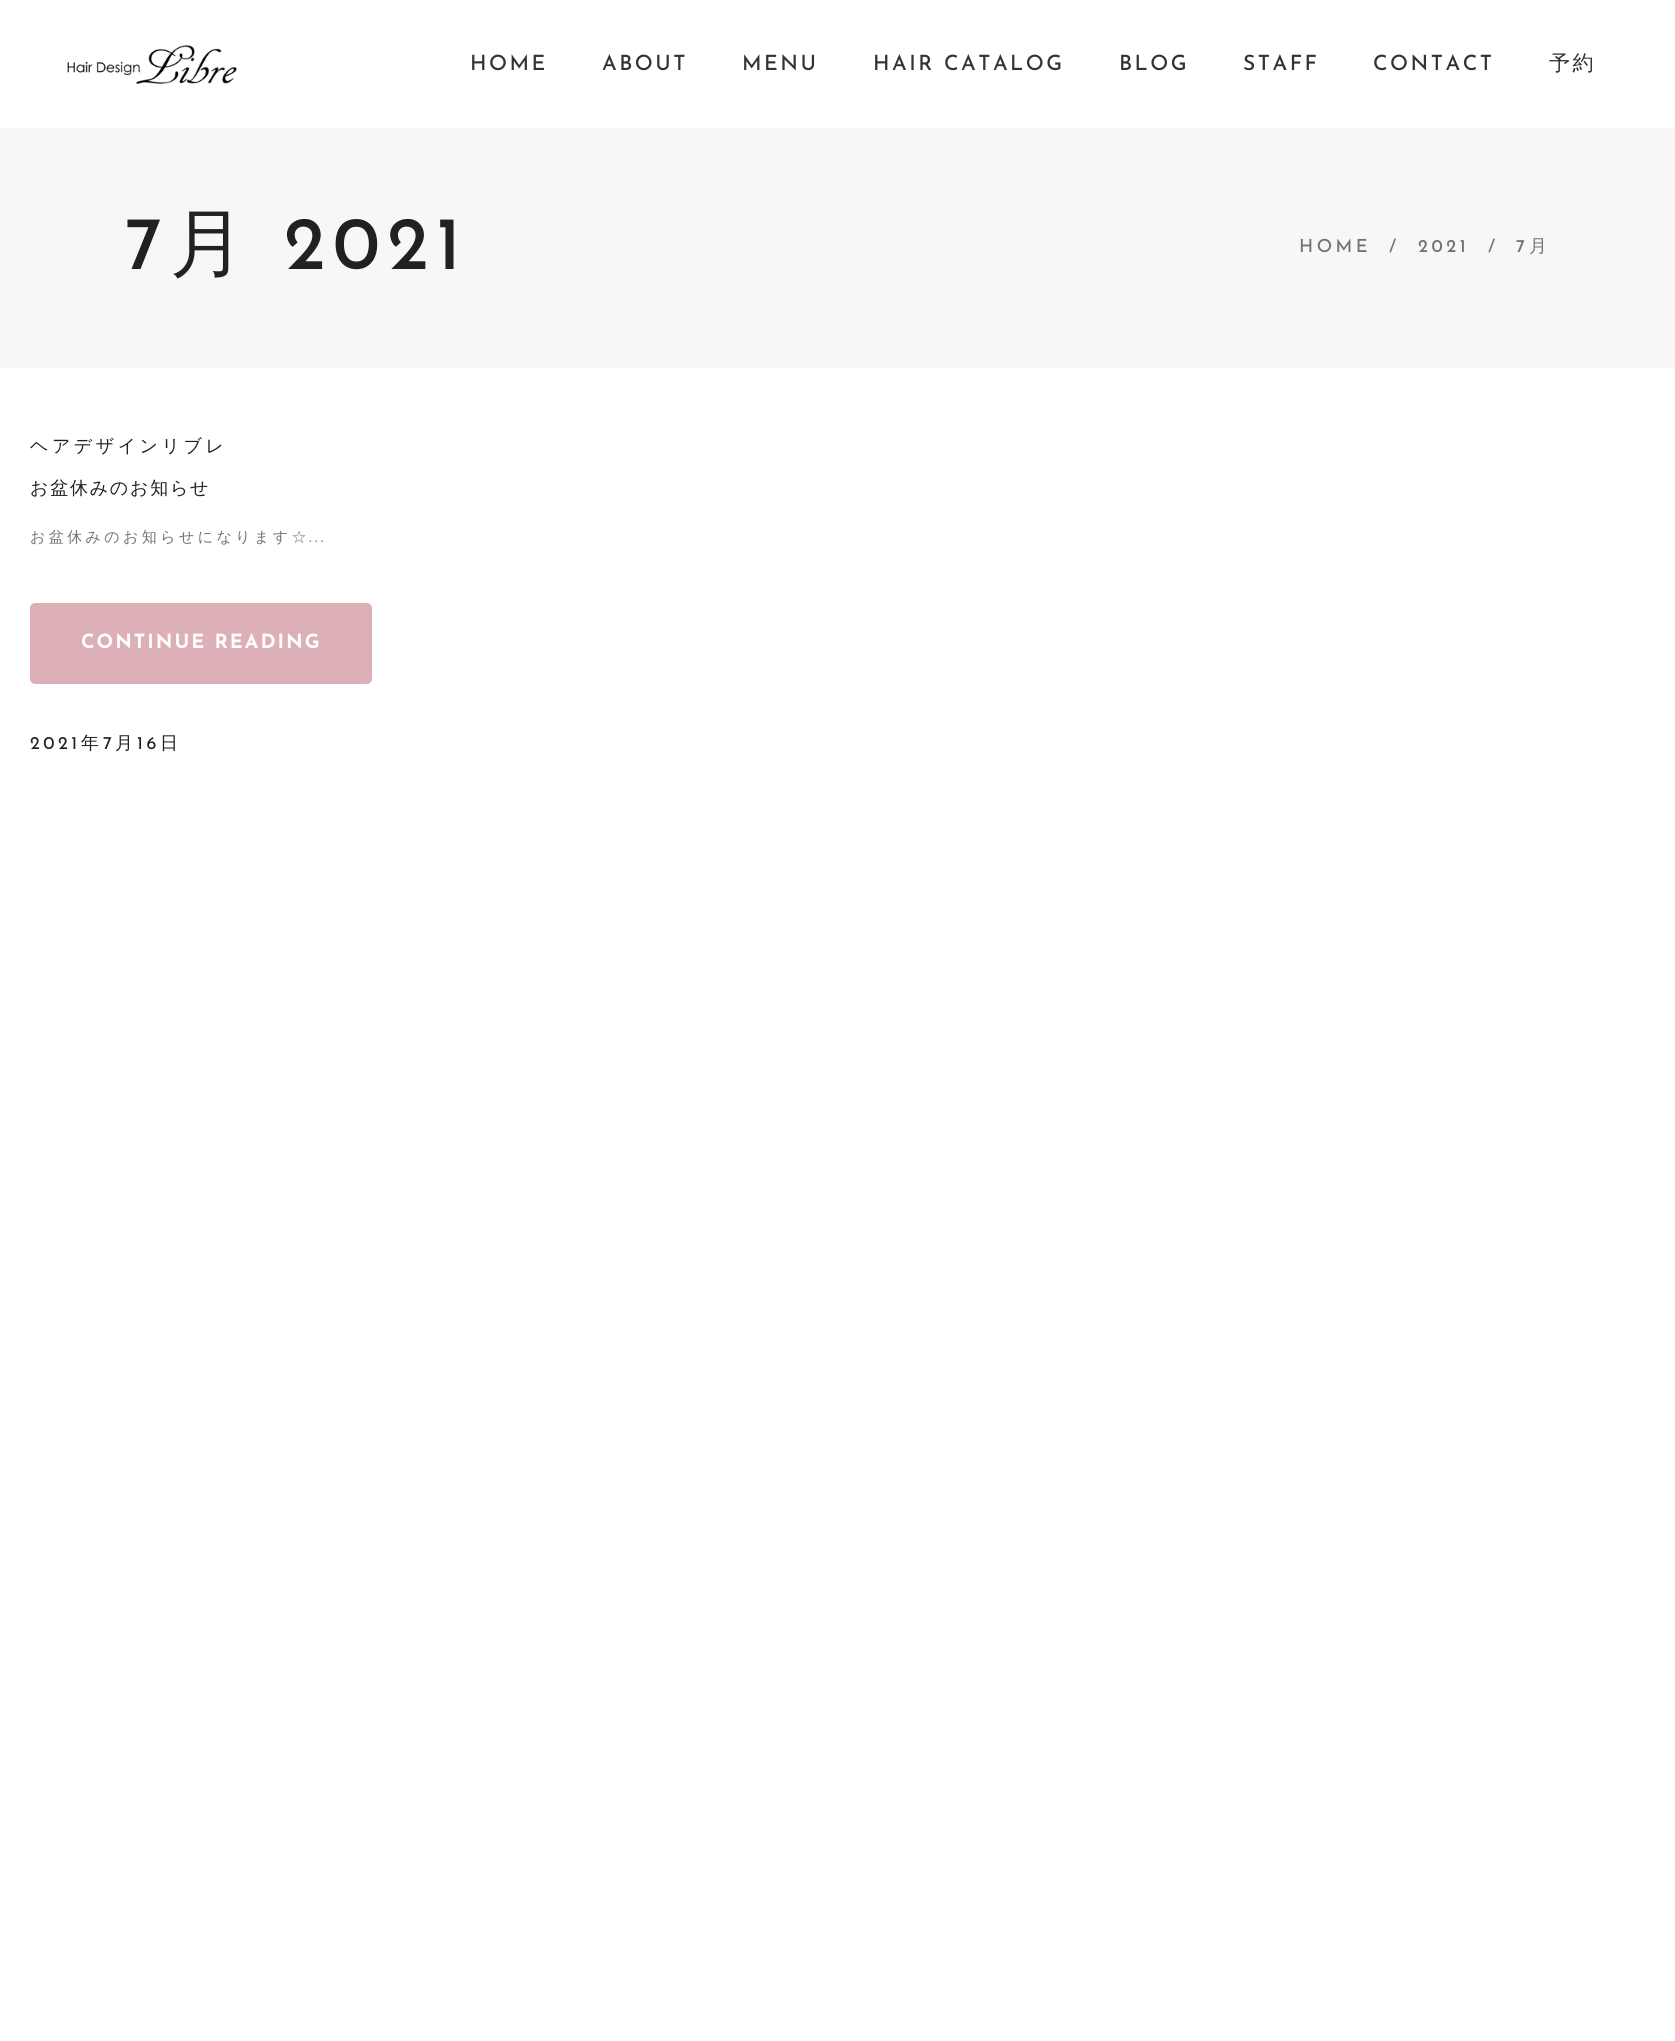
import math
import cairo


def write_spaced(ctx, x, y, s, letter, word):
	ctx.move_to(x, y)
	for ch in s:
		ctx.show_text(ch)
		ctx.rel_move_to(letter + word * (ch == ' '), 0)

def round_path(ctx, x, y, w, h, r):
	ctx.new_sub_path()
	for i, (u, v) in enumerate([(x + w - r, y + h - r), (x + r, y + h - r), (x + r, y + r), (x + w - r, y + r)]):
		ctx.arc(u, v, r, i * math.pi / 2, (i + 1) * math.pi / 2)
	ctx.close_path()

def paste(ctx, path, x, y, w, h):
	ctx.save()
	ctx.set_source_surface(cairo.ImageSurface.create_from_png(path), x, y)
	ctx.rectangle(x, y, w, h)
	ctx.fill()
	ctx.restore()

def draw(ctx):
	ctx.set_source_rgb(1, 1, 1)
	ctx.paint()
	paste(ctx, 'media/1.png', 67, 45, 170, 39)
	ctx.select_font_face('Josefin Sans Medium')
	ctx.set_font_size(21)
	ctx.set_source_rgb(0.2, 0.2, 0.2)
	for x, y, s in [
		(470, 70, 'HOME'),
		(602, 70, 'ABOUT'),
		(742, 70, 'MENU'),
		(873, 70, 'HAIR CATALOG'),
		(1119, 70, 'BLOG'),
		(1243, 70, 'STAFF'),
		(1373, 70, 'CONTACT'),
	]:
		write_spaced(ctx, x, y, s, 2.5, 0)
	ctx.select_font_face('WenQuanYi Zen Hei Medium')
	write_spaced(ctx, 1549, 70, '予約', 2.5, 0)
	ctx.set_source_rgb(0.969, 0.961, 0.961)
	ctx.rectangle(0, 128, 1675, 240)
	ctx.fill()
	ctx.select_font_face('Josefin Sans Medium')
	ctx.set_font_size(75)
	ctx.set_source_rgb(0.129, 0.129, 0.129)
	write_spaced(ctx, 125, 269, '7', 7.5, 0)
	ctx.select_font_face('WenQuanYi Zen Hei Medium')
	write_spaced(ctx, 170, 269, '月', 7.5, 0)
	ctx.select_font_face('Josefin Sans Medium')
	write_spaced(ctx, 284, 269, '2021', 7.5, 0)
	ctx.set_font_size(18)
	ctx.set_source_rgb(0.451, 0.451, 0.451)
	write_spaced(ctx, 1299, 252, 'HOME', 3.5, 0)
	write_spaced(ctx, 1389, 252, '/', 3.4, 0)
	write_spaced(ctx, 1418, 252, '2021', 3.5, 0)
	write_spaced(ctx, 1488, 252, '/', 3.4, 0)
	write_spaced(ctx, 1516, 252, '7', 3.5, 0)
	ctx.select_font_face('WenQuanYi Zen Hei Medium')
	write_spaced(ctx, 1529, 252, '月', 3.5, 0)
	ctx.set_source_rgb(0.129, 0.129, 0.129)
	write_spaced(ctx, 30, 452, 'ヘアデザインリブレ', 3.5, 0)
	write_spaced(ctx, 30, 494, 'お盆休みのお知らせ', 1.75, 0)
	ctx.set_font_size(15)
	ctx.set_source_rgb(0.451, 0.451, 0.451)
	write_spaced(ctx, 30, 542, 'お盆休みのお知らせになります☆', 3.4, 0)
	ctx.select_font_face('Josefin Sans')
	write_spaced(ctx, 309, 542, '...', 3.4, 0)
	ctx.set_source_rgb(0.867, 0.69, 0.718)
	round_path(ctx, 31.5, 604.5, 339, 78, 3.5)
	ctx.fill_preserve()
	ctx.set_line_width(3)
	ctx.stroke()
	ctx.select_font_face('Josefin Sans', cairo.FONT_SLANT_NORMAL, cairo.FONT_WEIGHT_BOLD)
	ctx.set_font_size(19.5)
	ctx.set_source_rgb(1, 1, 1)
	write_spaced(ctx, 81, 648, 'CONTINUE READING', 2, 0)
	ctx.select_font_face('Josefin Sans')
	ctx.set_font_size(18)
	ctx.set_source_rgb(0.129, 0.129, 0.129)
	write_spaced(ctx, 30, 749, '2021', 3.5, 0)
	ctx.select_font_face('WenQuanYi Zen Hei Medium')
	write_spaced(ctx, 81, 749, '年', 3.5, 0)
	ctx.select_font_face('Josefin Sans')
	write_spaced(ctx, 103, 749, '7', 3.5, 0)
	ctx.select_font_face('WenQuanYi Zen Hei Medium')
	write_spaced(ctx, 115, 749, '月', 3.5, 0)
	ctx.select_font_face('Josefin Sans')
	write_spaced(ctx, 137, 749, '16', 3.5, 0)
	ctx.select_font_face('WenQuanYi Zen Hei Medium')
	write_spaced(ctx, 160, 749, '日', 3.5, 0)


surface = cairo.ImageSurface(cairo.FORMAT_RGB24, 1675, 2041)
ctx = cairo.Context(surface)
options = cairo.FontOptions()
options.set_hint_metrics(cairo.HINT_METRICS_OFF)
options.set_hint_style(cairo.HINT_STYLE_NONE)
ctx.set_font_options(options)
ctx.set_miter_limit(4)
draw(ctx)
surface.write_to_png('image.png')
